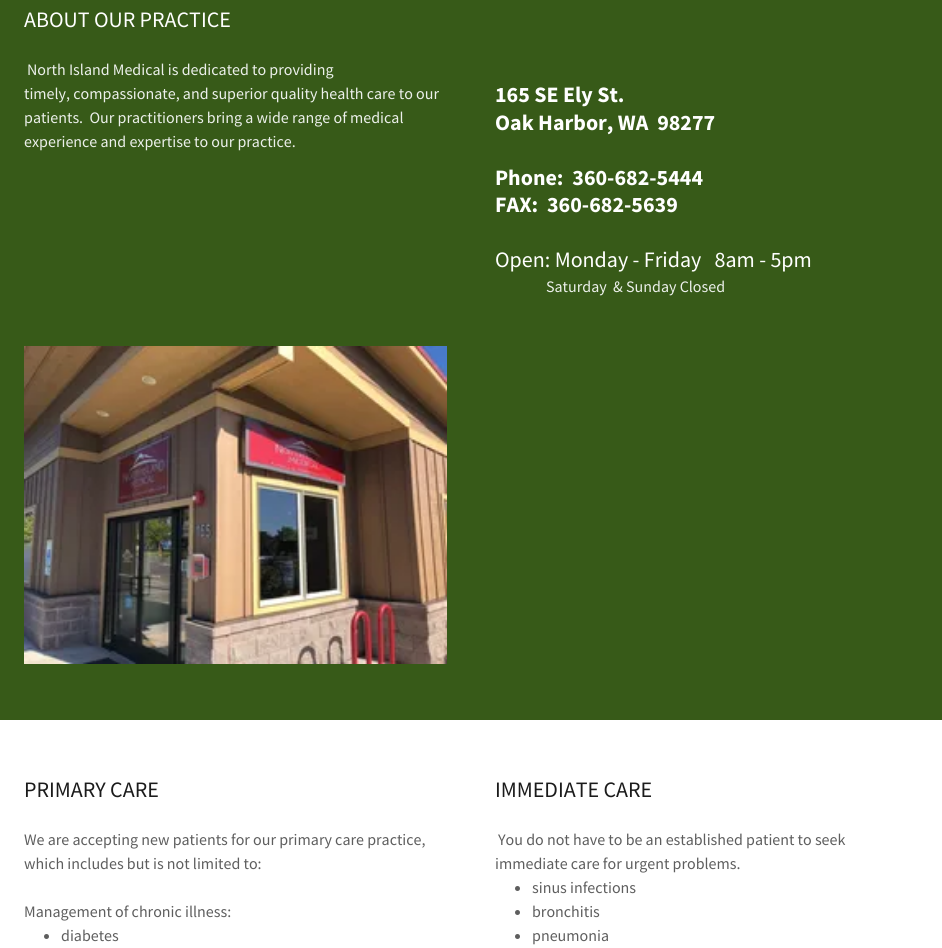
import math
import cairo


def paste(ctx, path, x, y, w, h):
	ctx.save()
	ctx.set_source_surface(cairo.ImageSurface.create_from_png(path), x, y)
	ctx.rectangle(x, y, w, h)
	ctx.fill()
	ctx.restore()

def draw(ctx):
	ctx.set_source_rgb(1, 1, 1)
	ctx.paint()
	ctx.set_source_rgb(0.216, 0.353, 0.094)
	ctx.rectangle(0, 0, 942, 720)
	ctx.fill()
	ctx.select_font_face('Source Sans Pro')
	ctx.set_font_size(22)
	ctx.set_source_rgb(1, 1, 1)
	ctx.move_to(24, 27)
	ctx.show_text('ABOUT OUR PRACTICE')
	ctx.set_font_size(16)
	ctx.set_source_rgb(0.925, 0.941, 0.918)
	for x, y, s in [
		(27, 75, 'North Island Medical is dedicated to providing'),
		(24, 99, 'timely, compassionate, and superior quality health care to our'),
		(24, 123, 'patients.  Our practitioners bring a wide range of medical'),
		(24, 147, 'experience and expertise to our practice.'),
	]:
		ctx.move_to(x, y)
		ctx.show_text(s)
	ctx.select_font_face('Source Sans Pro', cairo.FONT_SLANT_NORMAL, cairo.FONT_WEIGHT_BOLD)
	ctx.set_font_size(22)
	ctx.set_source_rgb(1, 1, 1)
	for x, y, s in [
		(495, 102, '165 SE Ely St.'),
		(495, 130, 'Oak Harbor, WA  98277'),
		(495, 185, 'Phone:  360-682-5444'),
		(495, 212, 'FAX:  360-682-5639'),
	]:
		ctx.move_to(x, y)
		ctx.show_text(s)
	ctx.select_font_face('Source Sans Pro')
	ctx.move_to(495, 267)
	ctx.show_text('Open: Monday - Friday   8am - 5pm')
	ctx.set_font_size(16)
	ctx.set_source_rgb(0.925, 0.941, 0.918)
	ctx.move_to(546, 292)
	ctx.show_text('Saturday  & Sunday Closed')
	paste(ctx, 'media/1.png', 24, 346, 423, 318)
	ctx.set_font_size(22)
	ctx.set_source_rgb(0.106, 0.106, 0.106)
	ctx.move_to(24, 797)
	ctx.show_text('PRIMARY CARE')
	ctx.set_font_size(16)
	ctx.set_source_rgb(0.369, 0.369, 0.369)
	for x, y, s in [
		(24, 845, 'We are accepting new patients for our primary care practice,'),
		(24, 869, 'which includes but is not limited to:'),
		(24, 917, 'Management of chronic illness:'),
	]:
		ctx.move_to(x, y)
		ctx.show_text(s)
	ctx.new_path()
	ctx.arc(46.5, 936.5, 2.5, 0, 2 * math.pi)
	ctx.fill()
	ctx.move_to(61, 941)
	ctx.show_text('diabetes')
	ctx.set_font_size(22)
	ctx.set_source_rgb(0.106, 0.106, 0.106)
	ctx.move_to(495, 797)
	ctx.show_text('IMMEDIATE CARE')
	ctx.set_font_size(16)
	ctx.set_source_rgb(0.369, 0.369, 0.369)
	ctx.move_to(498, 845)
	ctx.show_text('You do not have to be an established patient to seek')
	ctx.move_to(495, 869)
	ctx.show_text('immediate care for urgent problems.')
	ctx.new_path()
	ctx.arc(517.5, 888.5, 2.5, 0, 2 * math.pi)
	ctx.fill()
	ctx.move_to(532, 893)
	ctx.show_text('sinus infections')
	ctx.new_path()
	ctx.arc(517.5, 912.5, 2.5, 0, 2 * math.pi)
	ctx.fill()
	ctx.move_to(532, 917)
	ctx.show_text('bronchitis')
	ctx.new_path()
	ctx.arc(517.5, 936.5, 2.5, 0, 2 * math.pi)
	ctx.fill()
	ctx.move_to(532, 941)
	ctx.show_text('pneumonia')


surface = cairo.ImageSurface(cairo.FORMAT_RGB24, 942, 948)
ctx = cairo.Context(surface)
options = cairo.FontOptions()
options.set_hint_metrics(cairo.HINT_METRICS_OFF)
options.set_hint_style(cairo.HINT_STYLE_NONE)
ctx.set_font_options(options)
ctx.set_miter_limit(4)
draw(ctx)
surface.write_to_png('image.png')
